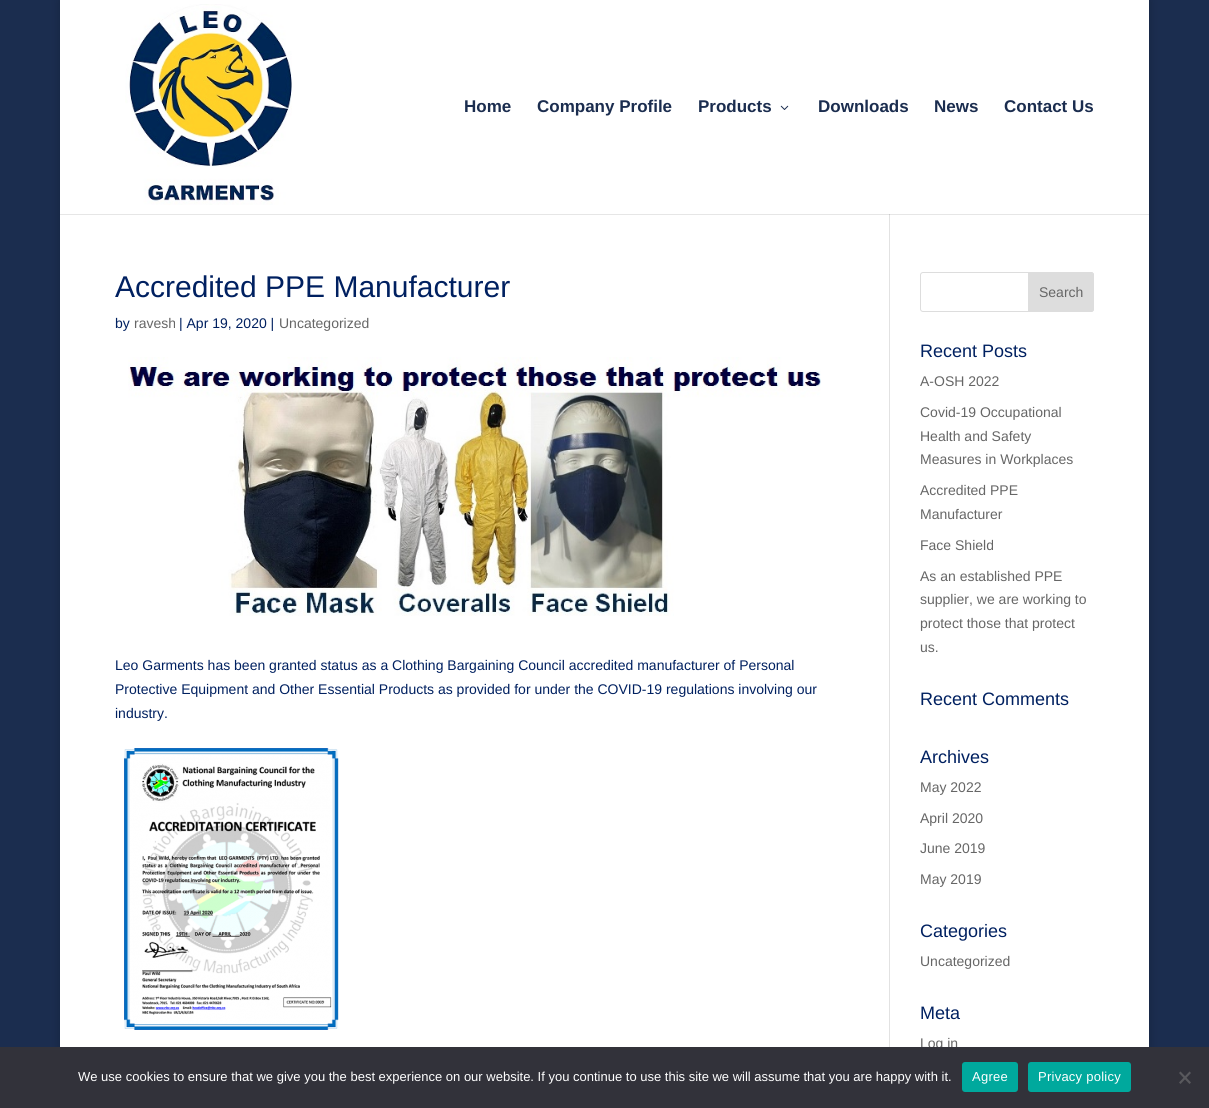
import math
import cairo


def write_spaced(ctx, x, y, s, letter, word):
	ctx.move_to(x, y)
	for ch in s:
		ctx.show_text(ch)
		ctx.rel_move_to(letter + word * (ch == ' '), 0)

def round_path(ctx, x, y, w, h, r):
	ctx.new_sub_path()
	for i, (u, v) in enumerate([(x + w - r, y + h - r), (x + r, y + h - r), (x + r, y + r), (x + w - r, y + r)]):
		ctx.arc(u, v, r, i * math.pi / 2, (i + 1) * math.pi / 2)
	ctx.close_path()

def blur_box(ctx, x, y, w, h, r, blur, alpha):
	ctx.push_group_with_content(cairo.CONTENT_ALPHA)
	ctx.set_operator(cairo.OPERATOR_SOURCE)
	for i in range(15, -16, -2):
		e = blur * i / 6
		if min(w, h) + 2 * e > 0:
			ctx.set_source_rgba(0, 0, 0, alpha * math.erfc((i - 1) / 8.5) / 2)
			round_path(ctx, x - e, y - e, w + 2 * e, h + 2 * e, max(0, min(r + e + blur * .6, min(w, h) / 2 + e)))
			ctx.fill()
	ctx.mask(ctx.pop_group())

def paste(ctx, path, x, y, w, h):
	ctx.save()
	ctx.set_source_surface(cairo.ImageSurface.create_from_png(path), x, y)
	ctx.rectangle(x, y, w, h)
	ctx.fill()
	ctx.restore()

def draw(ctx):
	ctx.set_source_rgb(0.106, 0.176, 0.31)
	ctx.paint()
	ctx.set_source_rgb(0, 0, 0)
	blur_box(ctx, 60, 0, 1089, 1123, 0, 5, 0.2)
	ctx.set_source_rgb(1, 1, 1)
	ctx.rectangle(60, 0, 1089, 214)
	ctx.fill()
	paste(ctx, 'media/1.png', 125, 4, 167, 201)
	ctx.select_font_face('Liberation Sans', cairo.FONT_SLANT_NORMAL, cairo.FONT_WEIGHT_BOLD)
	ctx.set_font_size(17)
	ctx.set_source_rgb(0.106, 0.176, 0.31)
	for x, y, s in [
		(464, 112, 'Home'),
		(537, 112, 'Company Profile'),
		(698, 112, 'Products'),
	]:
		ctx.move_to(x, y)
		ctx.show_text(s)
	paste(ctx, 'media/2.png', 780, 105, 9, 5)
	for x, y, s in [
		(818, 112, 'Downloads'),
		(934, 112, 'News'),
		(1004, 112, 'Contact Us'),
	]:
		ctx.move_to(x, y)
		ctx.show_text(s)
	ctx.set_source_rgb(1, 1, 1)
	ctx.rectangle(60, 215, 1089, 832)
	ctx.fill()
	ctx.set_source_rgb(0.902, 0.902, 0.902)
	ctx.rectangle(60, 214, 1089, 1)
	ctx.fill()
	ctx.set_source_rgb(0.886, 0.886, 0.886)
	ctx.rectangle(889, 214, 1, 833)
	ctx.fill()
	ctx.set_source_rgb(0.796, 0.796, 0.796)
	ctx.rectangle(889, 214, 1, 1)
	ctx.fill()
	ctx.select_font_face('Liberation Sans')
	ctx.set_font_size(30)
	ctx.set_source_rgb(0, 0.125, 0.376)
	ctx.move_to(115, 297)
	ctx.show_text('Accredited PPE Manufacturer')
	ctx.set_font_size(14)
	ctx.move_to(115, 328)
	ctx.show_text('by')
	ctx.set_source_rgb(0.4, 0.4, 0.4)
	ctx.move_to(134, 328)
	ctx.show_text('ravesh')
	ctx.set_source_rgb(0, 0.125, 0.376)
	ctx.move_to(179, 328)
	ctx.show_text('| Apr 19, 2020 |')
	ctx.set_source_rgb(0.4, 0.4, 0.4)
	ctx.move_to(279, 328)
	ctx.show_text('Uncategorized')
	paste(ctx, 'media/3.png', 128, 357, 693, 259)
	ctx.set_source_rgb(0, 0.125, 0.376)
	for x, y, s in [
		(115, 670, 'Leo Garments has been granted status as a Clothing Bargaining Council accredited manufacturer of Personal'),
		(115, 694, 'Protective Equipment and Other Essential Products as provided for under the COVID-19 regulations involving our'),
		(115, 718, 'industry.'),
	]:
		ctx.move_to(x, y)
		ctx.show_text(s)
	paste(ctx, 'media/4.png', 124, 748, 215, 282)
	round_path(ctx, 920.5, 272.5, 173, 39, 2.5)
	ctx.set_source_rgb(0.867, 0.867, 0.867)
	ctx.set_line_width(1)
	ctx.stroke()
	ctx.new_path()
	ctx.move_to(1028.5, 272.5)
	ctx.line_to(1091, 272.5)
	ctx.curve_to(1092.5, 272.5, 1093.5, 273.5, 1093.5, 275)
	ctx.line_to(1093.5, 309)
	ctx.curve_to(1093.5, 310.5, 1092.5, 311.5, 1091, 311.5)
	ctx.line_to(1028.5, 311.5)
	ctx.close_path()
	ctx.fill_preserve()
	ctx.stroke()
	ctx.set_source_rgb(0.4, 0.4, 0.4)
	ctx.move_to(1039, 297)
	ctx.show_text('Search')
	ctx.set_font_size(18)
	ctx.set_source_rgb(0, 0.125, 0.376)
	ctx.move_to(920, 357)
	ctx.show_text('Recent Posts')
	ctx.set_font_size(14)
	ctx.set_source_rgb(0.4, 0.4, 0.4)
	for x, y, s in [
		(920, 386, 'A-OSH 2022'),
		(920, 417, 'Covid-19 Occupational'),
		(920, 441, 'Health and Safety'),
		(920, 464, 'Measures in Workplaces'),
		(920, 495, 'Accredited PPE'),
		(920, 519, 'Manufacturer'),
		(920, 550, 'Face Shield'),
		(920, 581, 'As an established PPE'),
		(920, 604, 'supplier, we are working to'),
		(920, 628, 'protect those that protect'),
		(920, 652, 'us.'),
	]:
		ctx.move_to(x, y)
		ctx.show_text(s)
	ctx.set_font_size(18)
	ctx.set_source_rgb(0, 0.125, 0.376)
	ctx.move_to(920, 705)
	ctx.show_text('Recent Comments')
	ctx.move_to(920, 763)
	ctx.show_text('Archives')
	ctx.set_font_size(14)
	ctx.set_source_rgb(0.4, 0.4, 0.4)
	for x, y, s in [
		(920, 792, 'May 2022'),
		(920, 823, 'April 2020'),
		(920, 853, 'June 2019'),
		(920, 884, 'May 2019'),
	]:
		ctx.move_to(x, y)
		ctx.show_text(s)
	ctx.set_font_size(18)
	ctx.set_source_rgb(0, 0.125, 0.376)
	ctx.move_to(920, 937)
	ctx.show_text('Categories')
	ctx.set_font_size(14)
	ctx.set_source_rgb(0.4, 0.4, 0.4)
	ctx.move_to(920, 966)
	ctx.show_text('Uncategorized')
	ctx.set_font_size(18)
	ctx.set_source_rgb(0, 0.125, 0.376)
	ctx.move_to(920, 1019)
	ctx.show_text('Meta')
	ctx.set_font_size(14)
	ctx.set_source_rgb(0.4, 0.4, 0.4)
	ctx.move_to(920, 1048)
	ctx.show_text('Log in')
	ctx.set_source_rgb(0.196, 0.196, 0.227)
	ctx.rectangle(0, 1047, 1209, 61)
	ctx.fill()
	ctx.set_font_size(13)
	ctx.set_source_rgb(1, 1, 1)
	ctx.move_to(78, 1081)
	ctx.show_text('We use cookies to ensure that we give you the best experience on our website. If you continue to use this site we will assume that you are happy with it.')
	ctx.set_source_rgb(0, 0.663, 0.616)
	round_path(ctx, 962, 1062, 56, 30, 3)
	ctx.fill()
	ctx.set_source_rgb(1, 1, 1)
	write_spaced(ctx, 972, 1081, 'Agree', 0.25, 0)
	ctx.set_source_rgb(0, 0.663, 0.616)
	round_path(ctx, 1028, 1062, 103, 30, 3)
	ctx.fill()
	ctx.set_source_rgb(1, 1, 1)
	write_spaced(ctx, 1038, 1081, 'Privacy policy', 0.25, 0)
	ctx.set_source_rgb(0.349, 0.349, 0.365)
	ctx.new_path()
	ctx.move_to(1189.5, 1071.5)
	ctx.line_to(1191, 1073)
	ctx.line_to(1180.5, 1084)
	ctx.line_to(1179, 1082.5)
	ctx.close_path()
	ctx.fill()
	ctx.new_path()
	ctx.move_to(1179, 1073)
	ctx.line_to(1180.5, 1071.5)
	ctx.line_to(1191, 1082.5)
	ctx.line_to(1189.5, 1084)
	ctx.close_path()
	ctx.fill()


surface = cairo.ImageSurface(cairo.FORMAT_RGB24, 1209, 1108)
ctx = cairo.Context(surface)
options = cairo.FontOptions()
options.set_hint_metrics(cairo.HINT_METRICS_OFF)
options.set_hint_style(cairo.HINT_STYLE_NONE)
ctx.set_font_options(options)
ctx.set_miter_limit(4)
draw(ctx)
surface.write_to_png('image.png')
